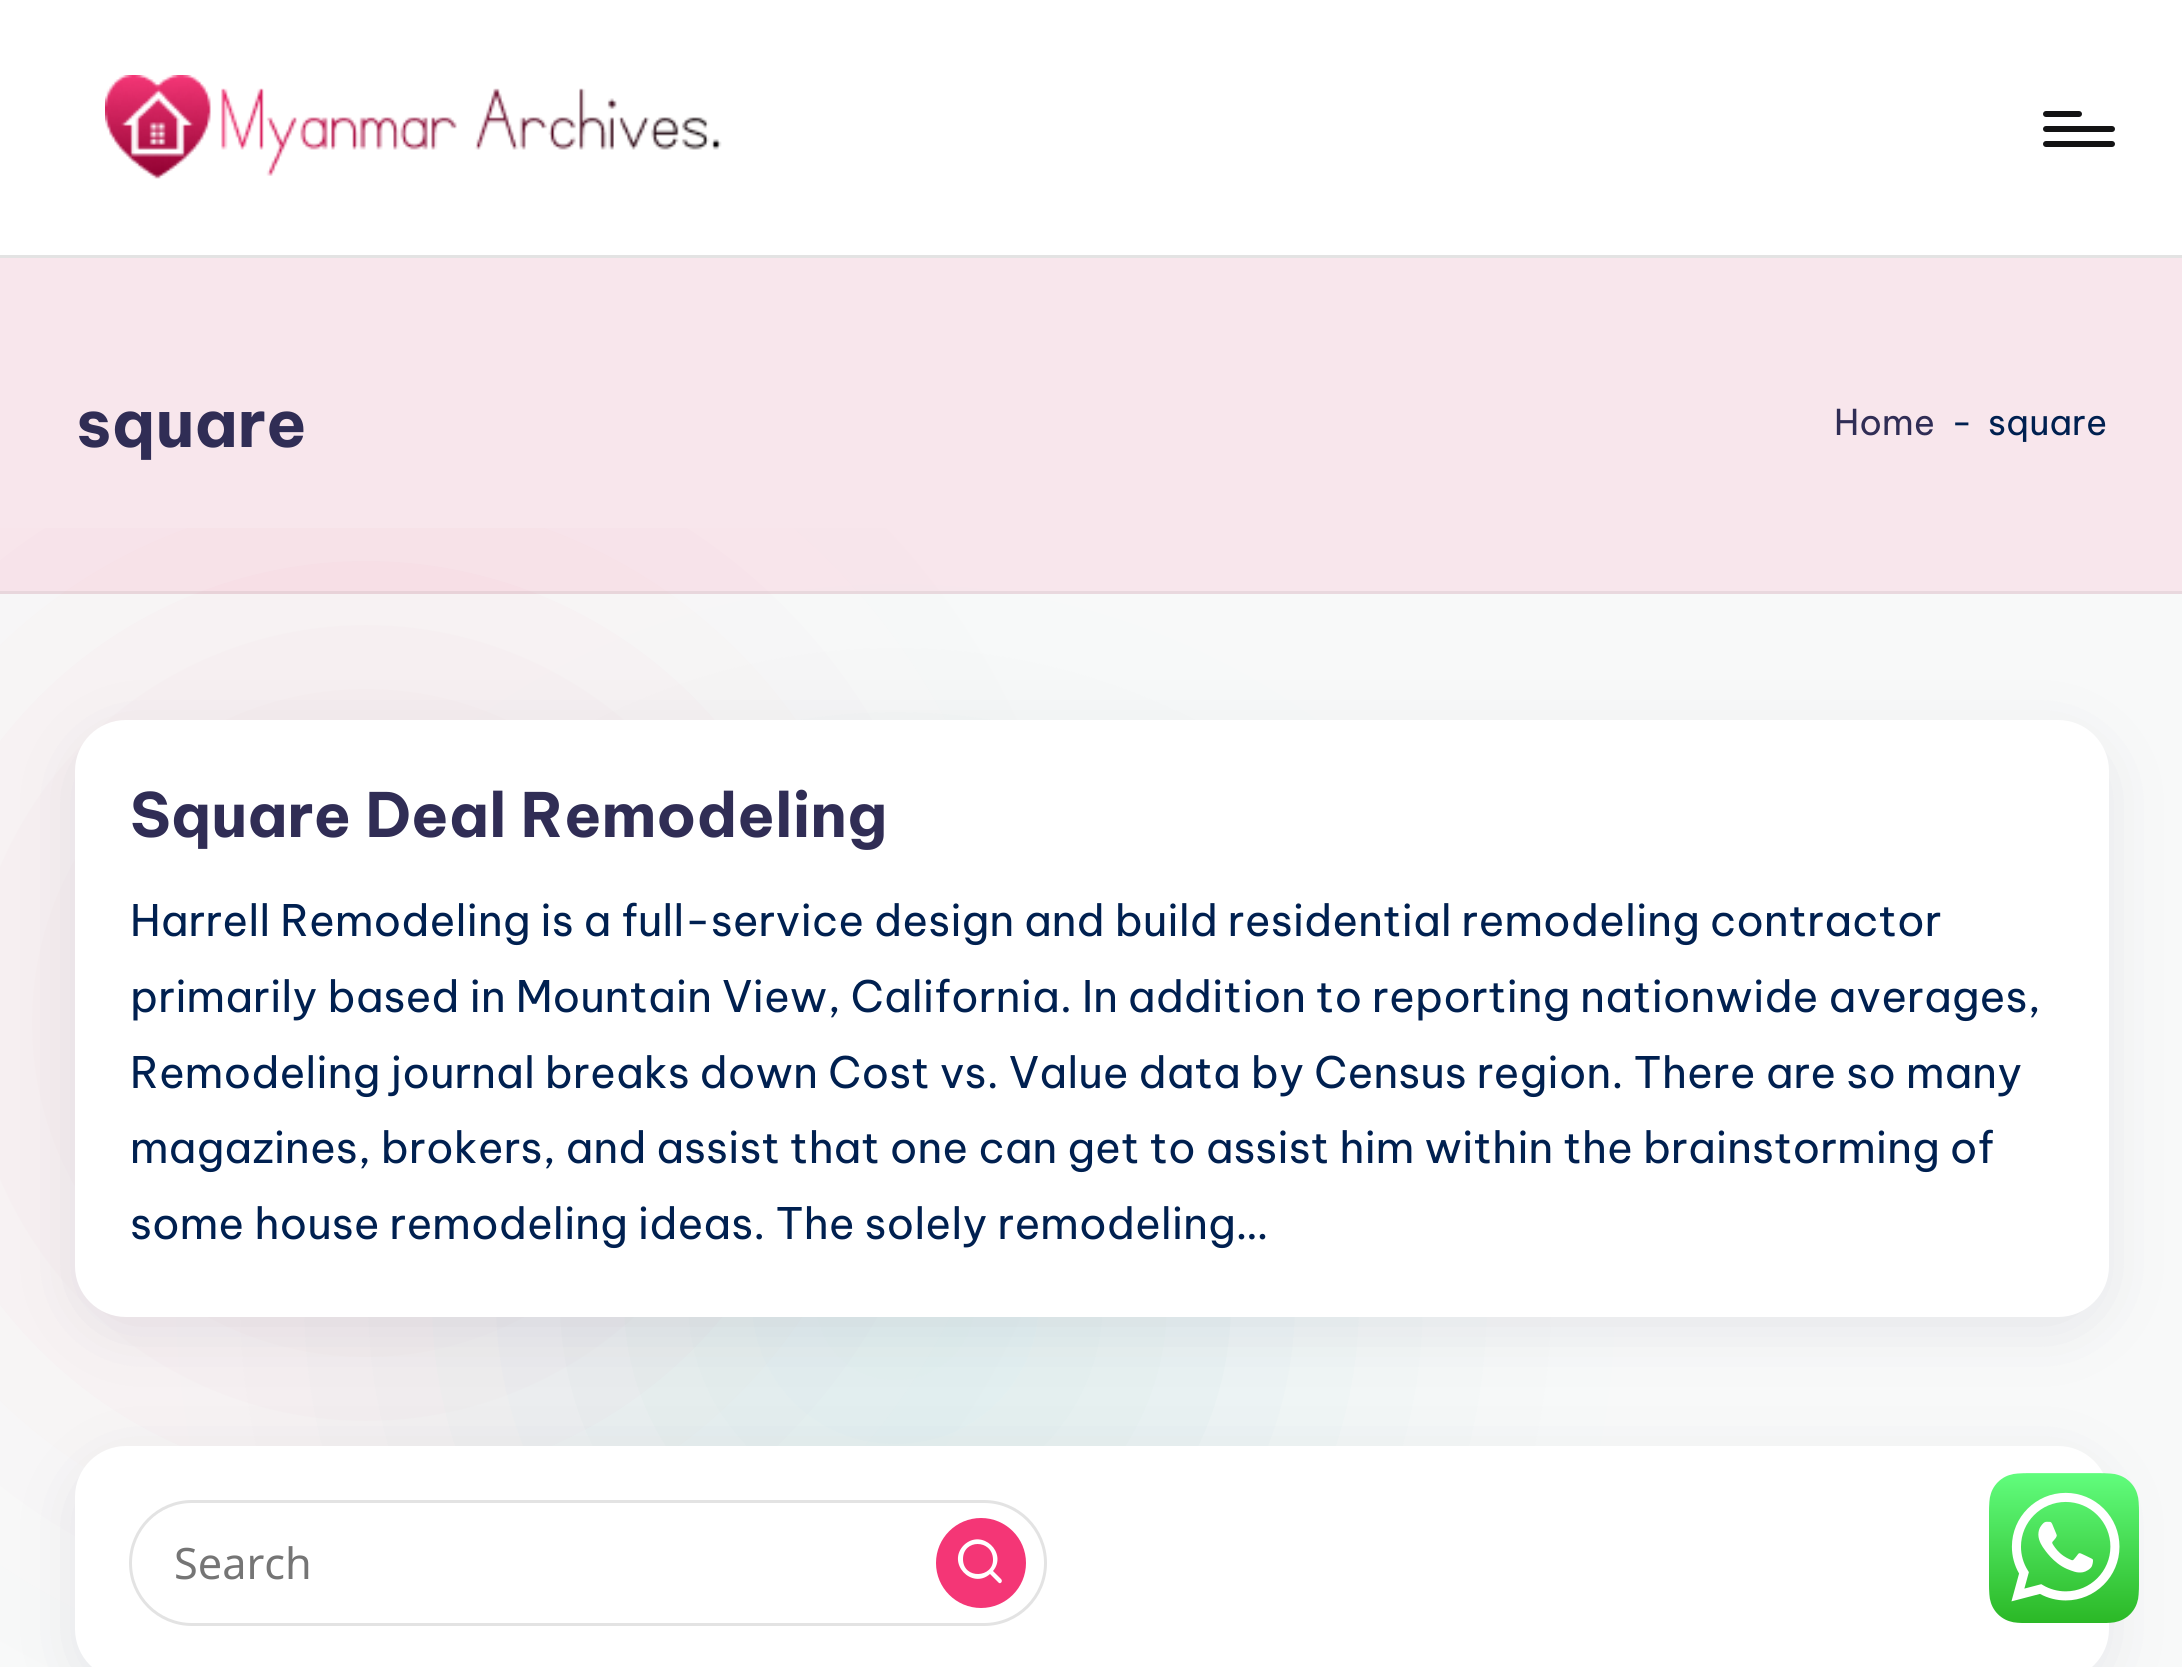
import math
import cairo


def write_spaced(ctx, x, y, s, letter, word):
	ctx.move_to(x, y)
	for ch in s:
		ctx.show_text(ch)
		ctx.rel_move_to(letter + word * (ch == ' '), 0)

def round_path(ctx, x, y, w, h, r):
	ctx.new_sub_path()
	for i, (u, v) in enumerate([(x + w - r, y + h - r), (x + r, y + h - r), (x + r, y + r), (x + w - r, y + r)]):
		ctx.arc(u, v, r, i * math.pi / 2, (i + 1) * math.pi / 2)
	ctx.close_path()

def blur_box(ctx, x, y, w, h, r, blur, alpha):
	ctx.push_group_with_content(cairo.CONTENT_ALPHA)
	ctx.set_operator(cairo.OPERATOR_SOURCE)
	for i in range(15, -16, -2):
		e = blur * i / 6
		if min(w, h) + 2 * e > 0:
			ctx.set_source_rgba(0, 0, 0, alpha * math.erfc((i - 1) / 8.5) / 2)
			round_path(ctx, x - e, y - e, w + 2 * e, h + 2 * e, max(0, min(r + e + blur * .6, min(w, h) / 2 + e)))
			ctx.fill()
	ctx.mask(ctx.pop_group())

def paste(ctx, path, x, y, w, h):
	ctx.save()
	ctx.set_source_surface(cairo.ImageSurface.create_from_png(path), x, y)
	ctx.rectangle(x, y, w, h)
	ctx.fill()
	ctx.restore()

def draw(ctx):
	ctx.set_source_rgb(0.969, 0.973, 0.976)
	ctx.paint()
	ctx.save()
	ctx.rectangle(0, 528, 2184, 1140)
	ctx.clip()
	ctx.set_source_rgb(0.957, 0.902, 0.914)
	blur_box(ctx, 0, 657, 732, 732, 366, 192, 1)
	ctx.restore()
	ctx.set_source_rgb(1, 1, 1)
	ctx.rectangle(0, 0, 2182, 255)
	ctx.fill()
	ctx.set_source_rgb(0.89, 0.89, 0.89)
	ctx.rectangle(0, 255, 2182, 3)
	ctx.fill()
	paste(ctx, 'media/1.png', 105, 75, 617, 104)
	ctx.set_source_rgb(0.075, 0.075, 0.082)
	round_path(ctx, 2043, 126, 72, 6, 3)
	ctx.fill()
	round_path(ctx, 2043, 111, 39, 6, 3)
	ctx.fill()
	round_path(ctx, 2043, 141, 72, 6, 3)
	ctx.fill()
	ctx.set_source_rgb(0.016, 0.525, 0.545)
	blur_box(ctx, 528, 936, 735, 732, 366, 192, 0.1)
	ctx.set_source_rgba(0.957, 0.212, 0.463, 0.1)
	ctx.rectangle(0, 258, 2182, 336)
	ctx.fill()
	ctx.set_source_rgba(0, 0, 0, 0.06)
	ctx.rectangle(0, 591, 2182, 3)
	ctx.fill()
	ctx.select_font_face('Be Vietnam Pro', cairo.FONT_SLANT_NORMAL, cairo.FONT_WEIGHT_BOLD)
	ctx.set_font_size(66)
	ctx.set_source_rgb(0.188, 0.176, 0.333)
	ctx.move_to(76, 447)
	ctx.show_text('square')
	ctx.select_font_face('Be Vietnam Pro')
	ctx.set_font_size(35.5)
	ctx.move_to(1834, 435)
	ctx.show_text('Home')
	ctx.set_source_rgb(0, 0.125, 0.314)
	ctx.move_to(1951, 435)
	ctx.show_text('-')
	ctx.move_to(1988, 435)
	ctx.show_text('square')
	ctx.set_source_rgb(0.271, 0.263, 0.376)
	blur_box(ctx, 75, 735, 2034, 597, 51, 30, 0.1)
	ctx.set_source_rgb(1, 1, 1)
	round_path(ctx, 75, 720, 2034, 597, 51)
	ctx.fill()
	ctx.select_font_face('Be Vietnam Pro', cairo.FONT_SLANT_NORMAL, cairo.FONT_WEIGHT_BOLD)
	ctx.set_font_size(61)
	ctx.set_source_rgb(0.188, 0.176, 0.333)
	ctx.move_to(130, 837)
	ctx.show_text('Square Deal Remodeling')
	ctx.select_font_face('Be Vietnam Pro')
	ctx.set_font_size(43.25)
	ctx.set_source_rgb(0, 0.125, 0.314)
	write_spaced(ctx, 130, 936, 'Harrell Remodeling is a full-service design and build residential remodeling contractor', 0, -0.1)
	for x, y, s in [
		(130, 1012, 'primarily based in Mountain View, California. In addition to reporting nationwide averages,'),
		(130, 1088, 'Remodeling journal breaks down Cost vs. Value data by Census region. There are so many'),
		(130, 1163, 'magazines, brokers, and assist that one can get to assist him within the brainstorming of'),
		(130, 1239, 'some house remodeling ideas. The solely remodeling…'),
	]:
		ctx.move_to(x, y)
		ctx.show_text(s)
	ctx.set_source_rgb(0.271, 0.263, 0.376)
	blur_box(ctx, 75, 1461, 2034, 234, 51, 30, 0.1)
	ctx.set_source_rgb(1, 1, 1)
	round_path(ctx, 75, 1446, 2034, 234, 51)
	ctx.fill()
	round_path(ctx, 130.5, 1501.5, 915, 123, 61.5)
	ctx.set_source_rgb(0.89, 0.89, 0.89)
	ctx.set_line_width(3)
	ctx.stroke()
	ctx.select_font_face('Noto Sans')
	ctx.set_source_rgb(0.459, 0.459, 0.459)
	ctx.move_to(174, 1579)
	ctx.show_text('Search')
	ctx.set_source_rgb(0.957, 0.212, 0.463)
	ctx.new_path()
	ctx.arc(981, 1563, 45, 0, 2 * math.pi)
	ctx.fill()
	ctx.set_source_rgb(1, 1, 1)
	ctx.new_path()
	ctx.move_to(1001, 1579)
	ctx.line_to(993, 1571)
	ctx.curve_to(1008, 1553, 982, 1528, 964, 1545)
	ctx.curve_to(946, 1563, 972, 1590, 990, 1574)
	ctx.line_to(999, 1583)
	ctx.curve_to(1001, 1584, 1003, 1581, 1001, 1579)
	ctx.close_path()
	ctx.move_to(963, 1559)
	ctx.curve_to(963, 1539, 992, 1539, 993, 1559)
	ctx.curve_to(994, 1578, 963, 1580, 963, 1559)
	ctx.close_path()
	ctx.fill()
	paste(ctx, 'media/2.png', 1989, 1473, 150, 150)


surface = cairo.ImageSurface(cairo.FORMAT_RGB24, 2182, 1667)
ctx = cairo.Context(surface)
options = cairo.FontOptions()
options.set_hint_metrics(cairo.HINT_METRICS_OFF)
options.set_hint_style(cairo.HINT_STYLE_NONE)
ctx.set_font_options(options)
ctx.set_miter_limit(4)
draw(ctx)
surface.write_to_png('image.png')
